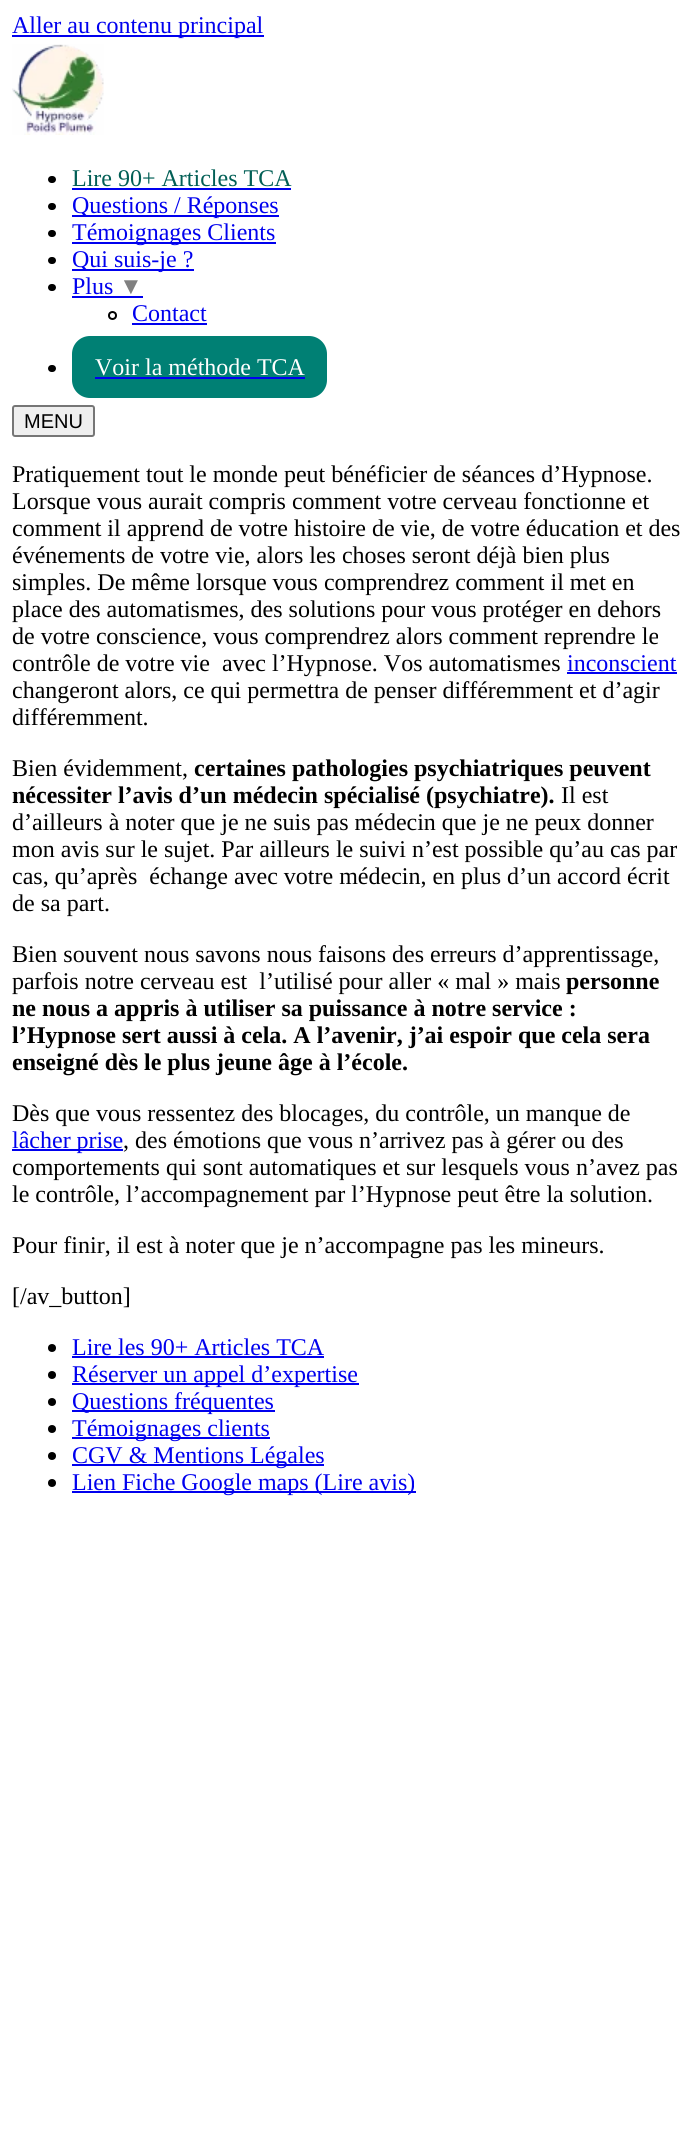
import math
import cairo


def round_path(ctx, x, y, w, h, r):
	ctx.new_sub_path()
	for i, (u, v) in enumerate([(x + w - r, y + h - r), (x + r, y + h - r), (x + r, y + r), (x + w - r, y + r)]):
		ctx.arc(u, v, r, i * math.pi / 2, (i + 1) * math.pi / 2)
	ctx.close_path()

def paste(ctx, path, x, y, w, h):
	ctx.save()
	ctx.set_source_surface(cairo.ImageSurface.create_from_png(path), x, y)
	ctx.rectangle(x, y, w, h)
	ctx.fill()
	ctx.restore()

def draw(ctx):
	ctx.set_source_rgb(1, 1, 1)
	ctx.paint()
	ctx.set_source_rgb(0, 0, 0.933)
	ctx.rectangle(12, 35, 252, 2)
	ctx.fill()
	ctx.select_font_face('Liberation Serif')
	ctx.set_font_size(24)
	ctx.move_to(12, 33)
	ctx.show_text('Aller au contenu principal')
	paste(ctx, 'media/1.png', 12, 44, 92, 91)
	ctx.set_source_rgb(0, 0, 0)
	round_path(ctx, 48, 176, 8, 7, 3.5)
	ctx.fill()
	ctx.set_source_rgb(0.008, 0.373, 0.337)
	ctx.move_to(72, 186)
	ctx.show_text('Lire 90+ Articles TCA')
	ctx.set_source_rgb(0, 0, 0.933)
	ctx.rectangle(72, 188, 219, 2)
	ctx.fill()
	ctx.set_source_rgb(0, 0, 0)
	round_path(ctx, 48, 203, 8, 7, 3.5)
	ctx.fill()
	ctx.set_source_rgb(0, 0, 0.933)
	ctx.rectangle(72, 215, 207, 2)
	ctx.fill()
	ctx.move_to(72, 213)
	ctx.show_text('Questions / Réponses')
	ctx.set_source_rgb(0, 0, 0)
	round_path(ctx, 48, 230, 8, 7, 3.5)
	ctx.fill()
	ctx.set_source_rgb(0, 0, 0.933)
	ctx.rectangle(72, 242, 204, 2)
	ctx.fill()
	ctx.move_to(72, 240)
	ctx.show_text('Témoignages Clients')
	ctx.set_source_rgb(0, 0, 0)
	round_path(ctx, 48, 257, 8, 7, 3.5)
	ctx.fill()
	ctx.set_source_rgb(0, 0, 0.933)
	ctx.rectangle(72, 269, 122, 2)
	ctx.fill()
	ctx.move_to(72, 267)
	ctx.show_text('Qui suis-je ?')
	ctx.set_source_rgb(0, 0, 0)
	round_path(ctx, 48, 284, 8, 7, 3.5)
	ctx.fill()
	ctx.set_source_rgb(0, 0, 0.933)
	ctx.move_to(72, 294)
	ctx.show_text('Plus')
	ctx.set_source_rgb(0.502, 0.502, 0.502)
	ctx.move_to(119, 294)
	ctx.show_text('▼')
	ctx.set_source_rgb(0, 0, 0.933)
	ctx.rectangle(72, 296, 71, 2)
	ctx.fill()
	ctx.arc(112.5, 315.5, 3.5, 0, 2 * math.pi)
	ctx.set_source_rgb(0, 0, 0)
	ctx.stroke()
	ctx.set_source_rgb(0, 0, 0.933)
	ctx.move_to(132, 321)
	ctx.show_text('Contact')
	ctx.rectangle(132, 323, 75, 2)
	ctx.fill()
	ctx.set_source_rgb(0, 0, 0)
	round_path(ctx, 48, 365, 8, 7, 3.5)
	ctx.fill()
	ctx.set_source_rgb(0, 0.502, 0.455)
	round_path(ctx, 72, 336, 255, 62, 18)
	ctx.fill()
	ctx.set_source_rgb(1, 1, 1)
	ctx.move_to(95, 375)
	ctx.show_text('Voir la méthode TCA')
	ctx.set_source_rgb(0, 0, 0.933)
	ctx.rectangle(95, 377, 210, 2)
	ctx.fill()
	ctx.set_source_rgb(0.937, 0.937, 0.937)
	round_path(ctx, 13, 406, 81, 30, 2)
	ctx.fill_preserve()
	ctx.set_source_rgb(0.463, 0.463, 0.463)
	ctx.stroke()
	ctx.select_font_face('Liberation Sans')
	ctx.set_font_size(20)
	ctx.set_source_rgb(0, 0, 0)
	ctx.move_to(24, 428)
	ctx.show_text('MENU')
	ctx.select_font_face('Liberation Serif')
	ctx.set_font_size(24)
	for x, y, s in [
		(12, 482, 'Pratiquement tout le monde peut bénéficier de séances d’Hypnose.'),
		(12, 509, 'Lorsque vous aurait compris comment votre cerveau fonctionne et'),
		(12, 536, 'comment il apprend de votre histoire de vie, de votre éducation et des'),
		(12, 563, 'événements de votre vie, alors les choses seront déjà bien plus'),
		(12, 590, 'simples. De même lorsque vous comprendrez comment il met en'),
		(12, 617, 'place des automatismes, des solutions pour vous protéger en dehors'),
		(12, 644, 'de votre conscience, vous comprendrez alors comment reprendre le'),
		(12, 671, 'contrôle de votre vie  avec l’Hypnose. Vos automatismes'),
	]:
		ctx.move_to(x, y)
		ctx.show_text(s)
	ctx.set_source_rgb(0, 0, 0.933)
	ctx.move_to(567, 671)
	ctx.show_text('inconscient')
	ctx.rectangle(567, 672, 110, 2)
	ctx.fill()
	ctx.set_source_rgb(0, 0, 0)
	for x, y, s in [
		(12, 698, 'changeront alors, ce qui permettra de penser différemment et d’agir'),
		(12, 725, 'différemment.'),
		(12, 776, 'Bien évidemment,'),
	]:
		ctx.move_to(x, y)
		ctx.show_text(s)
	ctx.select_font_face('Liberation Serif', cairo.FONT_SLANT_NORMAL, cairo.FONT_WEIGHT_BOLD)
	ctx.move_to(194, 776)
	ctx.show_text('certaines pathologies psychiatriques peuvent')
	ctx.move_to(12, 803)
	ctx.show_text('nécessiter l’avis d’un médecin spécialisé (psychiatre).')
	ctx.select_font_face('Liberation Serif')
	for x, y, s in [
		(561, 803, 'Il est'),
		(12, 830, 'd’ailleurs à noter que je ne suis pas médecin que je ne peux donner'),
		(12, 857, 'mon avis sur le sujet. Par ailleurs le suivi n’est possible qu’au cas par'),
		(12, 884, 'cas, qu’après  échange avec votre médecin, en plus d’un accord écrit'),
		(12, 911, 'de sa part.'),
		(12, 962, 'Bien souvent nous savons nous faisons des erreurs d’apprentissage,'),
		(12, 989, 'parfois notre cerveau est  l’utilisé pour aller « mal » mais'),
	]:
		ctx.move_to(x, y)
		ctx.show_text(s)
	ctx.select_font_face('Liberation Serif', cairo.FONT_SLANT_NORMAL, cairo.FONT_WEIGHT_BOLD)
	for x, y, s in [
		(566, 989, 'personne'),
		(12, 1016, 'ne nous a appris à utiliser sa puissance à notre service :'),
		(12, 1043, 'l’Hypnose sert aussi à cela. A l’avenir, j’ai espoir que cela sera'),
		(12, 1070, 'enseigné dès le plus jeune âge à l’école.'),
	]:
		ctx.move_to(x, y)
		ctx.show_text(s)
	ctx.select_font_face('Liberation Serif')
	ctx.move_to(12, 1121)
	ctx.show_text('Dès que vous ressentez des blocages, du contrôle, un manque de')
	ctx.set_source_rgb(0, 0, 0.933)
	ctx.rectangle(12, 1149, 111, 2)
	ctx.fill()
	ctx.move_to(12, 1148)
	ctx.show_text('lâcher prise')
	ctx.set_source_rgb(0, 0, 0)
	for x, y, s in [
		(123, 1148, ', des émotions que vous n’arrivez pas à gérer ou des'),
		(12, 1175, 'comportements qui sont automatiques et sur lesquels vous n’avez pas'),
		(12, 1202, 'le contrôle, l’accompagnement par l’Hypnose peut être la solution.'),
		(12, 1253, 'Pour finir, il est à noter que je n’accompagne pas les mineurs.'),
		(12, 1304, '[/av_button]'),
	]:
		ctx.move_to(x, y)
		ctx.show_text(s)
	ctx.new_path()
	ctx.arc(52, 1348, 4, 0, 2 * math.pi)
	ctx.fill()
	ctx.set_source_rgb(0, 0, 0.933)
	ctx.move_to(72, 1355)
	ctx.show_text('Lire les 90+ Articles TCA')
	ctx.rectangle(72, 1356, 252, 2)
	ctx.fill()
	ctx.set_source_rgb(0, 0, 0)
	ctx.arc(52, 1375, 4, 0, 2 * math.pi)
	ctx.fill()
	ctx.set_source_rgb(0, 0, 0.933)
	ctx.rectangle(72, 1383, 287, 2)
	ctx.fill()
	ctx.move_to(72, 1382)
	ctx.show_text('Réserver un appel d’expertise')
	ctx.set_source_rgb(0, 0, 0)
	ctx.new_path()
	ctx.arc(52, 1402, 4, 0, 2 * math.pi)
	ctx.fill()
	ctx.set_source_rgb(0, 0, 0.933)
	ctx.rectangle(72, 1410, 203, 2)
	ctx.fill()
	ctx.move_to(72, 1409)
	ctx.show_text('Questions fréquentes')
	ctx.set_source_rgb(0, 0, 0)
	ctx.new_path()
	ctx.arc(52, 1429, 4, 0, 2 * math.pi)
	ctx.fill()
	ctx.set_source_rgb(0, 0, 0.933)
	ctx.rectangle(72, 1437, 198, 2)
	ctx.fill()
	ctx.move_to(72, 1436)
	ctx.show_text('Témoignages clients')
	ctx.set_source_rgb(0, 0, 0)
	ctx.new_path()
	ctx.arc(52, 1456, 4, 0, 2 * math.pi)
	ctx.fill()
	ctx.set_source_rgb(0, 0, 0.933)
	ctx.rectangle(72, 1464, 252, 2)
	ctx.fill()
	ctx.move_to(72, 1463)
	ctx.show_text('CGV & Mentions Légales')
	ctx.set_source_rgb(0, 0, 0)
	ctx.new_path()
	ctx.arc(52, 1483, 4, 0, 2 * math.pi)
	ctx.fill()
	ctx.set_source_rgb(0, 0, 0.933)
	ctx.rectangle(72, 1491, 344, 2)
	ctx.fill()
	ctx.move_to(72, 1490)
	ctx.show_text('Lien Fiche Google maps (Lire avis)')


surface = cairo.ImageSurface(cairo.FORMAT_RGB24, 695, 2152)
ctx = cairo.Context(surface)
options = cairo.FontOptions()
options.set_hint_metrics(cairo.HINT_METRICS_OFF)
options.set_hint_style(cairo.HINT_STYLE_NONE)
ctx.set_font_options(options)
ctx.set_miter_limit(4)
draw(ctx)
surface.write_to_png('image.png')
